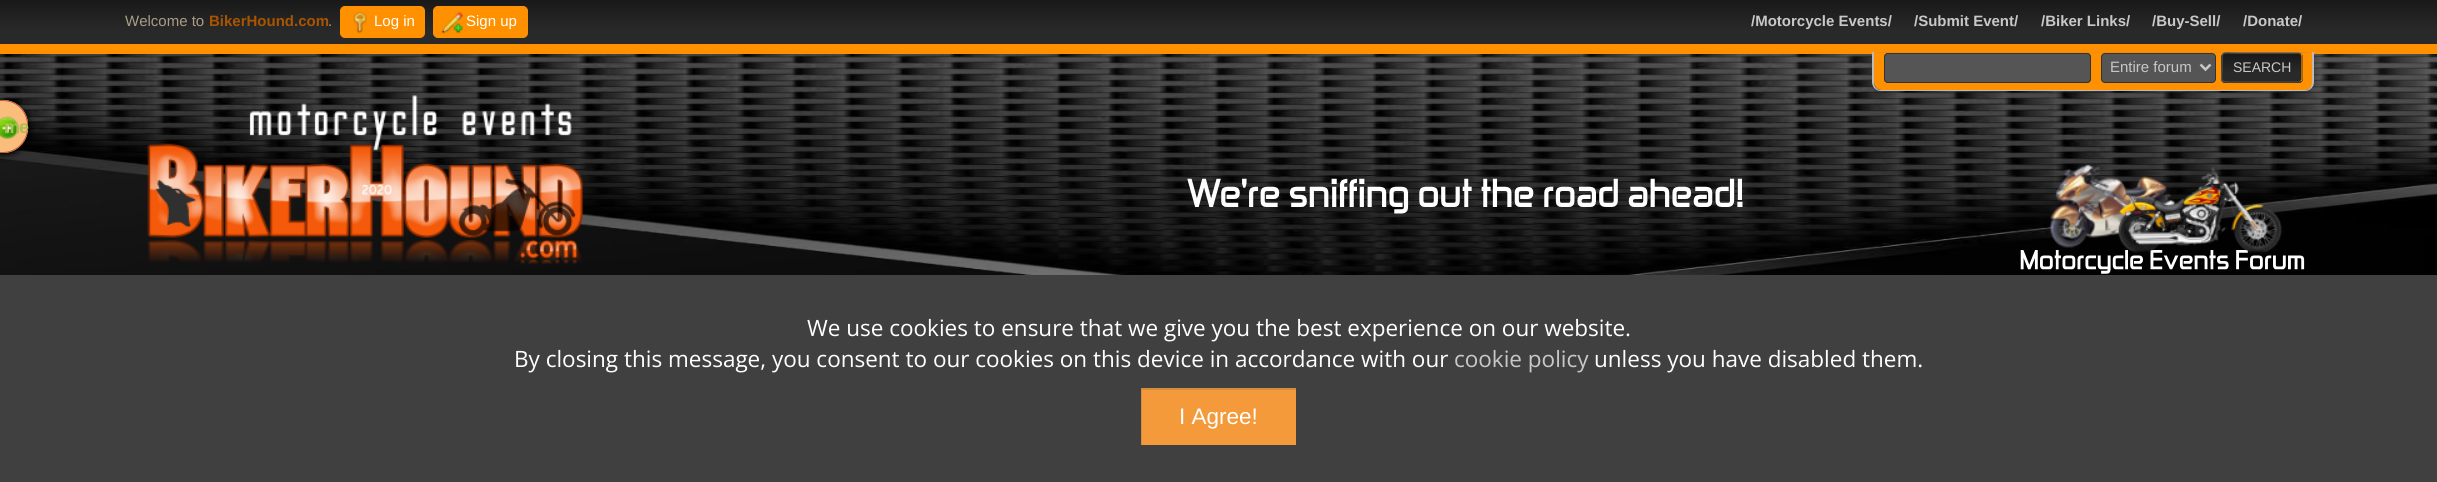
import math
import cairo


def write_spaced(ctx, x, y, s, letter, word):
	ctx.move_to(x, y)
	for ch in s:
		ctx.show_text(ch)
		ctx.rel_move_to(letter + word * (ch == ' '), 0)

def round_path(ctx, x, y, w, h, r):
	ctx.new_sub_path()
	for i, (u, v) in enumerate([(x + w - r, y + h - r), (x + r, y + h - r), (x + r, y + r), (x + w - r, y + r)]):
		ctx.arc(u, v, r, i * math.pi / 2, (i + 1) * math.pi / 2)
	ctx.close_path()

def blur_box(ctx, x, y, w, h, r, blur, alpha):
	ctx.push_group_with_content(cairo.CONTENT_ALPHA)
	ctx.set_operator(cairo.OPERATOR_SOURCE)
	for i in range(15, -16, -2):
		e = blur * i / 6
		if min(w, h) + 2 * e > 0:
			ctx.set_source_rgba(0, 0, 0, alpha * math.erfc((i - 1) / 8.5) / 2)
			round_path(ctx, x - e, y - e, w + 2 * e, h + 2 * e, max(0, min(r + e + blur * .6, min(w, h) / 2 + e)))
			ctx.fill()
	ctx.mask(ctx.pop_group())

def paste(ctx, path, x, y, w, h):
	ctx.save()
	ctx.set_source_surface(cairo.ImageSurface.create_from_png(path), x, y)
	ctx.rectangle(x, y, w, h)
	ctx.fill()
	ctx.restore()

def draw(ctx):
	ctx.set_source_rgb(1, 1, 1)
	ctx.paint()
	paste(ctx, 'media/1.png', 0, 54, 2437, 221)
	ctx.set_source_rgb(0, 0, 0)
	blur_box(ctx, 0, 1, 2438, 54, 0, 2.5, 0.16)
	gradient = cairo.LinearGradient(1219, 0, 1219, 44)
	gradient.add_color_stop_rgba(0, 0.098, 0.098, 0.098, 1)
	gradient.add_color_stop_rgba(0.7, 0.161, 0.161, 0.161, 1)
	ctx.set_source(gradient)
	ctx.rectangle(0, 0, 2437, 44)
	ctx.fill()
	ctx.set_source_rgb(1, 0.565, 0)
	ctx.rectangle(0, 44, 2437, 10)
	ctx.fill()
	ctx.select_font_face('Liberation Sans')
	ctx.set_font_size(15)
	ctx.set_source_rgb(0.663, 0.616, 0.529)
	ctx.move_to(125, 26)
	ctx.show_text('Welcome to')
	ctx.select_font_face('Liberation Sans', cairo.FONT_SLANT_NORMAL, cairo.FONT_WEIGHT_BOLD)
	ctx.set_source_rgb(0.659, 0.329, 0)
	ctx.move_to(209, 26)
	ctx.show_text('BikerHound.com')
	ctx.select_font_face('Liberation Sans')
	ctx.set_source_rgb(0.663, 0.616, 0.529)
	ctx.move_to(328, 26)
	ctx.show_text('.')
	ctx.set_source_rgb(1, 0.565, 0)
	round_path(ctx, 340.5, 6.5, 84, 31, 4.5)
	ctx.fill_preserve()
	ctx.set_line_width(1)
	ctx.stroke()
	paste(ctx, 'media/2.png', 353, 12, 14, 22)
	ctx.set_source_rgb(1, 1, 1)
	ctx.move_to(374, 26)
	ctx.show_text('Log in')
	ctx.set_source_rgb(1, 0.565, 0)
	round_path(ctx, 433.5, 6.5, 94, 31, 4.5)
	ctx.fill_preserve()
	ctx.stroke()
	paste(ctx, 'media/3.png', 441, 12, 22, 22)
	ctx.set_source_rgb(1, 1, 1)
	ctx.move_to(466, 26)
	ctx.show_text('Sign up')
	ctx.select_font_face('Liberation Sans', cairo.FONT_SLANT_NORMAL, cairo.FONT_WEIGHT_BOLD)
	ctx.set_source_rgb(0.784, 0.784, 0.784)
	for x, y, s in [
		(1751, 26, '/Motorcycle Events/'),
		(1914, 26, '/Submit Event/'),
		(2041, 26, '/Biker Links/'),
		(2152, 26, '/Buy-Sell/'),
		(2243, 26, '/Donate/'),
	]:
		ctx.move_to(x, y)
		ctx.show_text(s)
	ctx.set_source_rgb(0, 0, 0)
	blur_box(ctx, 1873, 54, 441, 39, 9, 2.5, 0.16)
	ctx.set_source_rgb(1, 0.565, 0)
	ctx.new_path()
	ctx.move_to(1873, 51)
	ctx.line_to(1873, 52)
	ctx.line_to(2314, 52)
	ctx.line_to(2314, 83)
	ctx.line_to(2314, 51)
	ctx.close_path()
	ctx.fill()
	ctx.new_path()
	ctx.move_to(1874, 53)
	ctx.line_to(2313, 53)
	ctx.line_to(2313, 82)
	ctx.curve_to(2313, 86.5, 2309.5, 90, 2305, 90)
	ctx.line_to(1882, 90)
	ctx.curve_to(1877.5, 90, 1874, 86.5, 1874, 82)
	ctx.close_path()
	ctx.fill()
	ctx.set_source_rgb(0.733, 0.733, 0.733)
	ctx.set_fill_rule(cairo.FILL_RULE_EVEN_ODD)
	ctx.new_path()
	ctx.move_to(1872, 52)
	ctx.line_to(2314, 52)
	ctx.line_to(2314, 82)
	ctx.curve_to(2314, 87, 2310, 91, 2305, 91)
	ctx.line_to(1881, 91)
	ctx.curve_to(1876, 91, 1872, 87, 1872, 82)
	ctx.close_path()
	ctx.move_to(1874, 52)
	ctx.line_to(2312, 52)
	ctx.line_to(2312, 82)
	ctx.curve_to(2312, 87, 2309, 90, 2305, 90)
	ctx.line_to(1881, 90)
	ctx.curve_to(1877, 90, 1874, 87, 1874, 82)
	ctx.close_path()
	ctx.fill()
	ctx.set_source_rgb(0.333, 0.333, 0.333)
	round_path(ctx, 1884, 53, 207, 30, 4)
	ctx.fill()
	ctx.set_fill_rule(cairo.FILL_RULE_WINDING)
	ctx.new_path()
	ctx.move_to(1889, 56)
	ctx.curve_to(1907, 56, 2089, 55, 2090, 56)
	ctx.curve_to(2090, 55, 2089, 54, 2088, 54)
	ctx.line_to(1888, 54)
	ctx.curve_to(1886, 54, 1885, 55, 1885, 56)
	ctx.line_to(1885, 78)
	ctx.curve_to(1885, 79, 1885, 80, 1886, 81)
	ctx.line_to(1886, 59)
	ctx.curve_to(1886, 57, 1887, 56, 1889, 56)
	ctx.close_path()
	ctx.fill()
	round_path(ctx, 1884.5, 53.5, 206, 29, 3.5)
	ctx.set_source_rgb(0.2, 0.2, 0.2)
	ctx.stroke()
	ctx.set_source_rgb(0.333, 0.333, 0.333)
	round_path(ctx, 2101.5, 53.5, 114, 29, 3.5)
	ctx.fill_preserve()
	ctx.set_source_rgb(0.2, 0.2, 0.2)
	ctx.stroke()
	ctx.new_path()
	ctx.move_to(2200.5, 64.5)
	ctx.line_to(2205.5, 69.5)
	ctx.line_to(2210.5, 64.5)
	ctx.set_source_rgb(0.784, 0.784, 0.784)
	ctx.set_line_width(2.5)
	ctx.stroke()
	ctx.select_font_face('Liberation Sans')
	ctx.move_to(2110, 72)
	ctx.show_text('Entire forum')
	ctx.save()
	round_path(ctx, 2221, 53, 82, 30, 4)
	ctx.clip()
	gradient = cairo.LinearGradient(2262, 26, 2262, 54)
	gradient.add_color_stop_rgba(0, 0.098, 0.098, 0.098, 1)
	gradient.add_color_stop_rgba(0.7, 0.161, 0.161, 0.161, 1)
	ctx.set_source(gradient)
	ctx.rectangle(2221, 53, 82, 1)
	ctx.fill()
	gradient = cairo.LinearGradient(2262, 54, 2262, 81)
	gradient.add_color_stop_rgba(0, 0.098, 0.098, 0.098, 1)
	gradient.add_color_stop_rgba(0.7, 0.161, 0.161, 0.161, 1)
	ctx.set_source(gradient)
	ctx.rectangle(2221, 54, 82, 27)
	ctx.fill()
	gradient = cairo.LinearGradient(2262, 81, 2262, 109)
	gradient.add_color_stop_rgba(0, 0.098, 0.098, 0.098, 1)
	gradient.add_color_stop_rgba(0.7, 0.161, 0.161, 0.161, 1)
	ctx.set_source(gradient)
	ctx.rectangle(2221, 81, 82, 2)
	ctx.fill()
	ctx.restore()
	ctx.new_path()
	ctx.move_to(2301, 54)
	ctx.curve_to(2301.5, 54.5, 2302, 55.5, 2302, 56)
	ctx.line_to(2302, 79)
	ctx.curve_to(2302, 79.5, 2301.5, 80.5, 2301, 81)
	ctx.set_source_rgb(1, 0.565, 0)
	ctx.set_line_width(1.2)
	ctx.stroke()
	ctx.new_path()
	ctx.move_to(2301, 81)
	ctx.line_to(2299, 82)
	ctx.line_to(2237.5, 82)
	ctx.curve_to(2217.5, 82, 2222, 84, 2222, 64)
	ctx.curve_to(2222, 50, 2221.5, 53, 2237.5, 53)
	ctx.line_to(2299, 53)
	ctx.line_to(2301, 54)
	ctx.set_source_rgb(0.333, 0.333, 0.333)
	ctx.stroke()
	ctx.set_font_size(14)
	ctx.set_source_rgb(0.784, 0.784, 0.784)
	ctx.move_to(2233, 72)
	ctx.show_text('SEARCH')
	ctx.set_source_rgb(0, 0, 0)
	blur_box(ctx, -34, 103, 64, 52, 25, 3, 1)
	ctx.set_source_rgb(0.98, 0.741, 0.482)
	ctx.new_path()
	ctx.move_to(-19, 100)
	ctx.line_to(3, 100)
	ctx.curve_to(17, 100, 28, 111, 28, 125)
	ctx.line_to(28, 128)
	ctx.curve_to(28, 142, 17, 153, 3, 153)
	ctx.line_to(-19, 153)
	ctx.curve_to(-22.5, 153, -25, 150.5, -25, 147)
	ctx.line_to(-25, 106)
	ctx.curve_to(-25, 102.5, -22.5, 100, -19, 100)
	ctx.close_path()
	ctx.fill()
	paste(ctx, 'media/4.png', 0, 116, 19, 23)
	ctx.new_path()
	ctx.move_to(-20, 100.5)
	ctx.line_to(3, 100.5)
	ctx.curve_to(16.5, 100.5, 27.5, 111.5, 27.5, 125)
	ctx.line_to(27.5, 128)
	ctx.curve_to(27.5, 141.5, 16.5, 152.5, 3, 152.5)
	ctx.line_to(-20, 152.5)
	ctx.curve_to(-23, 152.5, -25.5, 150, -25.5, 147)
	ctx.line_to(-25.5, 106)
	ctx.curve_to(-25.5, 103, -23, 100.5, -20, 100.5)
	ctx.close_path()
	ctx.set_source_rgb(0.776, 0.349, 0.212)
	ctx.set_line_width(1)
	ctx.stroke()
	ctx.select_font_face('Liberation Sans', cairo.FONT_SLANT_NORMAL, cairo.FONT_WEIGHT_BOLD)
	ctx.set_font_size(18)
	ctx.set_source_rgb(0.671, 0.741, 0.325)
	write_spaced(ctx, 4, 133, 'me', -1, 0)
	paste(ctx, 'media/5.png', 147, 94, 437, 170)
	paste(ctx, 'media/6.png', 1187, 164, 1118, 110)
	ctx.set_source_rgb(0.251, 0.251, 0.251)
	ctx.rectangle(0, 275, 2437, 207)
	ctx.fill()
	ctx.select_font_face('Open Sans')
	ctx.set_font_size(22.5)
	ctx.set_source_rgb(1, 1, 1)
	ctx.move_to(807, 336)
	ctx.show_text('We use cookies to ensure that we give you the best experience on our website.')
	ctx.move_to(514, 367)
	ctx.show_text('By closing this message, you consent to our cookies on this device in accordance with our')
	ctx.set_source_rgb(0.784, 0.784, 0.784)
	ctx.move_to(1454, 367)
	ctx.show_text('cookie policy')
	ctx.set_source_rgb(1, 1, 1)
	ctx.move_to(1594, 367)
	ctx.show_text('unless you have disabled them.')
	ctx.set_source_rgb(0.957, 0.604, 0.227)
	ctx.rectangle(1142, 390, 154, 55)
	ctx.fill()
	ctx.save()
	ctx.rectangle(1141, 388, 155, 57)
	ctx.clip()
	ctx.set_source_rgb(0.831, 0.549, 0.247)
	ctx.set_fill_rule(cairo.FILL_RULE_EVEN_ODD)
	ctx.new_path()
	ctx.move_to(1018, 264)
	ctx.line_to(1420, 264)
	ctx.line_to(1420, 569)
	ctx.line_to(1018, 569)
	ctx.close_path()
	ctx.move_to(1142, 390)
	ctx.line_to(1298, 390)
	ctx.line_to(1298, 448)
	ctx.line_to(1142, 448)
	ctx.close_path()
	ctx.fill()
	ctx.restore()
	ctx.select_font_face('Liberation Sans')
	ctx.set_source_rgb(1, 1, 1)
	ctx.move_to(1179, 424)
	ctx.show_text('I Agree!')


surface = cairo.ImageSurface(cairo.FORMAT_RGB24, 2437, 482)
ctx = cairo.Context(surface)
options = cairo.FontOptions()
options.set_hint_metrics(cairo.HINT_METRICS_OFF)
options.set_hint_style(cairo.HINT_STYLE_NONE)
ctx.set_font_options(options)
ctx.set_miter_limit(4)
draw(ctx)
surface.write_to_png('image.png')
